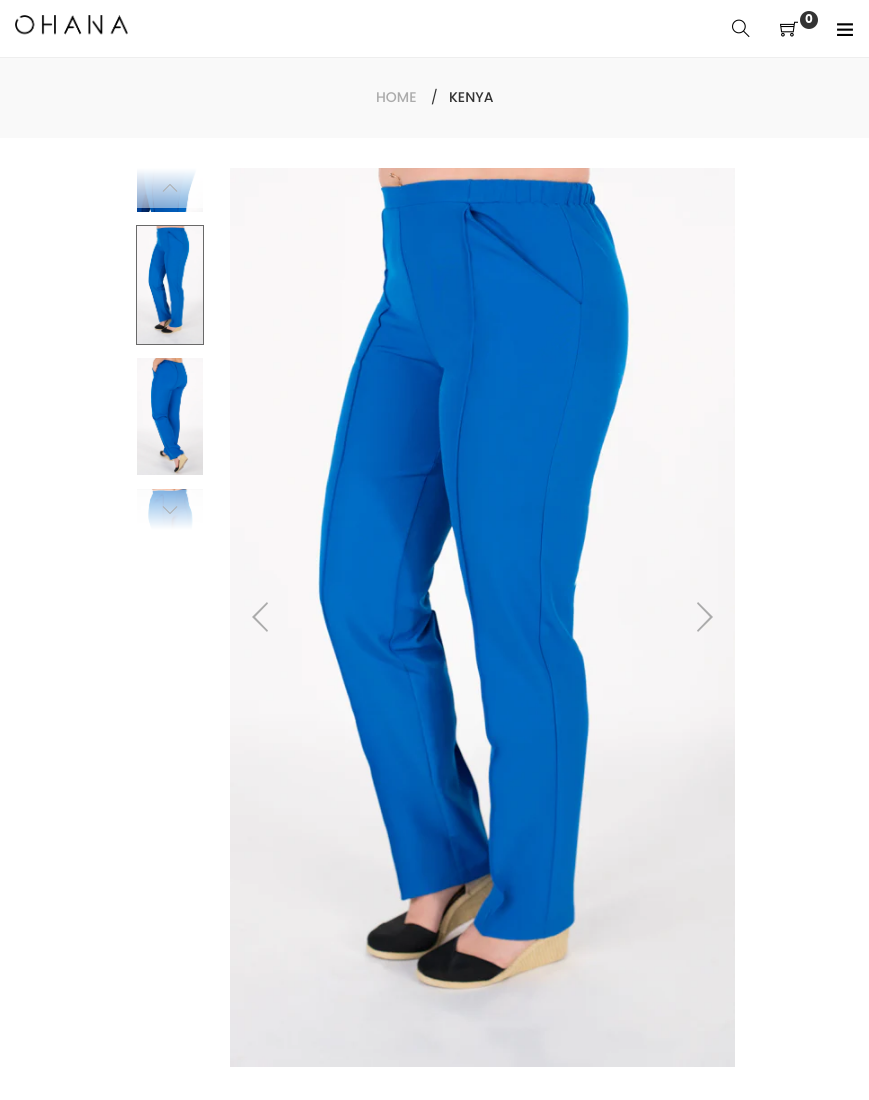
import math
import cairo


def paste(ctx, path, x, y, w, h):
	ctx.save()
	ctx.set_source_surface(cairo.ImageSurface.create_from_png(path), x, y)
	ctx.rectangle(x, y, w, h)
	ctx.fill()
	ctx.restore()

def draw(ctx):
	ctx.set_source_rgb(1, 1, 1)
	ctx.paint()
	ctx.set_source_rgb(0.933, 0.933, 0.933)
	ctx.rectangle(0, 57, 869, 1)
	ctx.fill()
	paste(ctx, 'media/1.png', 15, 15, 113, 20)
	paste(ctx, 'media/2.png', 732, 19, 18, 19)
	ctx.set_source_rgb(0.2, 0.2, 0.2)
	ctx.arc(809, 20, 9, 0, 2 * math.pi)
	ctx.fill()
	ctx.select_font_face('Poppins', cairo.FONT_SLANT_NORMAL, cairo.FONT_WEIGHT_BOLD)
	ctx.set_font_size(12)
	ctx.set_source_rgb(1, 1, 1)
	ctx.move_to(805, 23)
	ctx.show_text('0')
	paste(ctx, 'media/3.png', 780, 21, 18, 16)
	paste(ctx, 'media/4.png', 837, 23, 16, 13)
	ctx.set_source_rgb(0.976, 0.976, 0.976)
	ctx.rectangle(0, 58, 869, 80)
	ctx.fill()
	ctx.select_font_face('Poppins Medium')
	ctx.set_font_size(14)
	ctx.set_source_rgb(0.671, 0.671, 0.671)
	ctx.move_to(376, 102)
	ctx.show_text('HOME')
	ctx.select_font_face('Poppins')
	ctx.set_source_rgb(0.2, 0.2, 0.2)
	ctx.move_to(431, 102)
	ctx.show_text('/')
	ctx.select_font_face('Poppins Medium')
	ctx.move_to(449, 102)
	ctx.show_text('KENYA')
	paste(ctx, 'media/5.png', 137, 168, 66, 44)
	ctx.rectangle(136.5, 225.5, 67, 119)
	ctx.set_source_rgb(0.412, 0.412, 0.412)
	ctx.set_line_width(1)
	ctx.stroke()
	paste(ctx, 'media/6.png', 137, 226, 66, 118)
	paste(ctx, 'media/7.png', 137, 358, 66, 117)
	paste(ctx, 'media/8.png', 137, 489, 66, 41)
	gradient = cairo.LinearGradient(170, 168, 170, 208)
	gradient.add_color_stop_rgba(0, 1, 1, 1, 1)
	gradient.add_color_stop_rgba(1, 1, 1, 1, 0.5)
	ctx.set_source(gradient)
	ctx.rectangle(137, 168, 66, 40)
	ctx.fill()
	paste(ctx, 'media/9.png', 162, 184, 16, 8)
	gradient = cairo.LinearGradient(170, 490, 170, 530)
	gradient.add_color_stop_rgba(0, 1, 1, 1, 0.5)
	gradient.add_color_stop_rgba(1, 1, 1, 1, 1)
	ctx.set_source(gradient)
	ctx.rectangle(137, 490, 66, 40)
	ctx.fill()
	paste(ctx, 'media/10.png', 162, 506, 16, 8)
	paste(ctx, 'media/11.png', 230, 168, 505, 899)
	ctx.set_source_rgb(0.671, 0.671, 0.671)
	ctx.new_path()
	ctx.move_to(255, 617)
	ctx.line_to(268, 630.5)
	ctx.line_to(267, 632)
	ctx.line_to(252, 617)
	ctx.line_to(267, 602)
	ctx.line_to(268, 603.5)
	ctx.close_path()
	ctx.fill()
	ctx.new_path()
	ctx.move_to(713, 617)
	ctx.line_to(698, 632)
	ctx.line_to(697, 630.5)
	ctx.line_to(710, 617)
	ctx.line_to(697, 603.5)
	ctx.line_to(698, 602)
	ctx.close_path()
	ctx.fill()


surface = cairo.ImageSurface(cairo.FORMAT_RGB24, 869, 1100)
ctx = cairo.Context(surface)
options = cairo.FontOptions()
options.set_hint_metrics(cairo.HINT_METRICS_OFF)
options.set_hint_style(cairo.HINT_STYLE_NONE)
ctx.set_font_options(options)
ctx.set_miter_limit(4)
draw(ctx)
surface.write_to_png('image.png')
